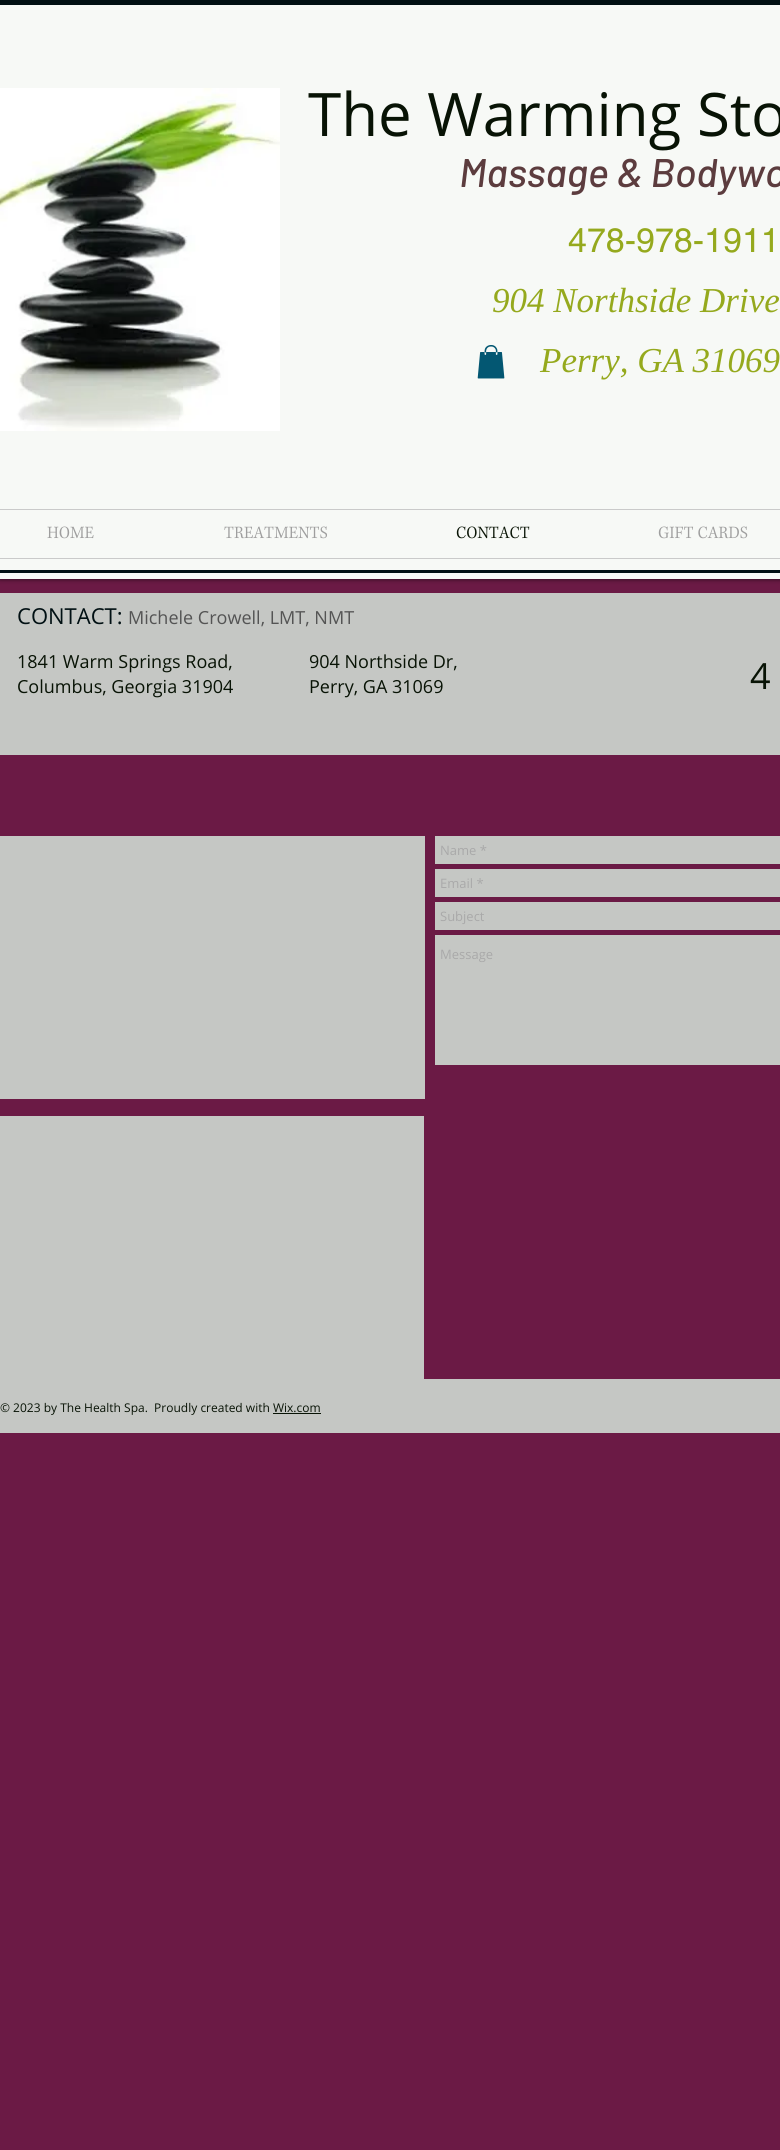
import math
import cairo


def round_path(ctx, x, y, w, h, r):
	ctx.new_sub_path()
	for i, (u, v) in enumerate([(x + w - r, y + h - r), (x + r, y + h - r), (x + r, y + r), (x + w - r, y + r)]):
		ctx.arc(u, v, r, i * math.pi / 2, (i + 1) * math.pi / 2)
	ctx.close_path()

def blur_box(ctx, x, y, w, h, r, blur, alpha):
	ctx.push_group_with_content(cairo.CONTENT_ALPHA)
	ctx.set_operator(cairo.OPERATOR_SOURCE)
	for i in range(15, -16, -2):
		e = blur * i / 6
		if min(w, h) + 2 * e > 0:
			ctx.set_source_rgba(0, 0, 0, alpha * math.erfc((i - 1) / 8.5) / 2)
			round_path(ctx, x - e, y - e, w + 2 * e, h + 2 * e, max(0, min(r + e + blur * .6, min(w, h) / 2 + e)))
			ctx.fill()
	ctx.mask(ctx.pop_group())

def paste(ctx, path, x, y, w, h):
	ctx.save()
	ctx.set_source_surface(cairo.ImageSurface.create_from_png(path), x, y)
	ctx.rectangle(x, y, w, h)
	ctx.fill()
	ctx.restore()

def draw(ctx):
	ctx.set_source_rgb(0.42, 0.102, 0.271)
	ctx.paint()
	ctx.set_source_rgb(0, 0, 0)
	blur_box(ctx, 0, 0, 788, 579, 0, 2.5, 0.7)
	ctx.set_source_rgb(0.965, 0.976, 0.961)
	ctx.rectangle(0, 5, 780, 574)
	ctx.fill()
	ctx.set_source_rgb(0.004, 0.063, 0.078)
	ctx.rectangle(0, 570, 780, 3)
	ctx.rectangle(0, 0, 780, 5)
	ctx.fill()
	paste(ctx, 'media/1.png', 0, 88, 280, 343)
	ctx.select_font_face('Open Sans')
	ctx.set_font_size(60)
	ctx.set_source_rgb(0.035, 0.078, 0.02)
	ctx.move_to(308, 136)
	ctx.show_text('The Warming Sto')
	ctx.select_font_face('Barlow Medium', cairo.FONT_SLANT_ITALIC)
	ctx.set_font_size(40)
	ctx.set_source_rgb(0.361, 0.235, 0.243)
	ctx.move_to(459, 187)
	ctx.show_text('Massage & Bodywo')
	ctx.select_font_face('helvetica')
	ctx.set_font_size(34)
	ctx.set_source_rgb(0.584, 0.663, 0.114)
	ctx.move_to(568, 252)
	ctx.show_text('478-978-1911')
	ctx.select_font_face('Liberation Serif', cairo.FONT_SLANT_ITALIC)
	ctx.set_font_size(35)
	ctx.move_to(492, 312)
	ctx.show_text('904 Northside Drive')
	ctx.move_to(540, 372)
	ctx.show_text('Perry, GA 31069')
	paste(ctx, 'media/2.png', 477, 345, 28, 34)
	ctx.set_source_rgb(0.792, 0.792, 0.792)
	ctx.rectangle(0, 509, 780, 1)
	ctx.fill()
	ctx.rectangle(0, 558, 780, 1)
	ctx.fill()
	paste(ctx, 'media/3.png', 47, 526, 47, 13)
	paste(ctx, 'media/4.png', 224, 526, 103, 13)
	paste(ctx, 'media/5.png', 456, 526, 74, 13)
	paste(ctx, 'media/6.png', 658, 526, 90, 13)
	ctx.set_source_rgb(0.773, 0.78, 0.769)
	ctx.rectangle(0, 593, 780, 162)
	ctx.fill()
	ctx.select_font_face('Open Sans')
	ctx.set_font_size(22)
	ctx.set_source_rgb(0.004, 0.063, 0.078)
	ctx.move_to(17, 624)
	ctx.show_text('CONTACT:')
	ctx.set_font_size(18)
	ctx.set_source_rgb(0.329, 0.329, 0.329)
	ctx.move_to(128, 624)
	ctx.show_text('Michele Crowell, LMT, NMT')
	ctx.set_source_rgb(0.035, 0.078, 0.02)
	for x, y, s in [
		(17, 668, '1841 Warm Springs Road,'),
		(17, 693, 'Columbus, Georgia 31904'),
		(309, 668, '904 Northside Dr,'),
		(309, 693, 'Perry, GA 31069'),
	]:
		ctx.move_to(x, y)
		ctx.show_text(s)
	ctx.set_font_size(36)
	ctx.move_to(750, 689)
	ctx.show_text('4')
	ctx.set_source_rgb(0.773, 0.78, 0.769)
	ctx.rectangle(0, 836, 425, 263)
	ctx.fill()
	ctx.rectangle(435, 836, 345, 28)
	ctx.fill()
	ctx.set_font_size(13)
	ctx.set_source_rgb(0.663, 0.663, 0.663)
	ctx.move_to(440, 855)
	ctx.show_text('Name *')
	ctx.set_source_rgb(0.773, 0.78, 0.769)
	ctx.rectangle(435, 869, 345, 28)
	ctx.fill()
	ctx.set_source_rgb(0.663, 0.663, 0.663)
	ctx.move_to(440, 888)
	ctx.show_text('Email *')
	ctx.set_source_rgb(0.773, 0.78, 0.769)
	ctx.rectangle(435, 902, 345, 28)
	ctx.fill()
	ctx.set_source_rgb(0.663, 0.663, 0.663)
	ctx.move_to(440, 921)
	ctx.show_text('Subject')
	ctx.set_source_rgb(0.773, 0.78, 0.769)
	ctx.rectangle(435, 935, 345, 130)
	ctx.fill()
	ctx.set_source_rgb(0.663, 0.663, 0.663)
	ctx.move_to(440, 959)
	ctx.show_text('Message')
	ctx.set_source_rgb(0.773, 0.78, 0.769)
	ctx.rectangle(0, 1116, 424, 263)
	ctx.fill()
	ctx.rectangle(0, 1379, 780, 54)
	ctx.fill()
	ctx.set_font_size(12)
	ctx.set_source_rgb(0.035, 0.078, 0.02)
	ctx.move_to(0, 1412)
	ctx.show_text('© 2023 by The Health Spa.  Proudly created with Wix.com')
	ctx.rectangle(273, 1413, 48, 1)
	ctx.fill()


surface = cairo.ImageSurface(cairo.FORMAT_RGB24, 780, 2150)
ctx = cairo.Context(surface)
options = cairo.FontOptions()
options.set_hint_metrics(cairo.HINT_METRICS_OFF)
options.set_hint_style(cairo.HINT_STYLE_NONE)
ctx.set_font_options(options)
ctx.set_miter_limit(4)
draw(ctx)
surface.write_to_png('image.png')
